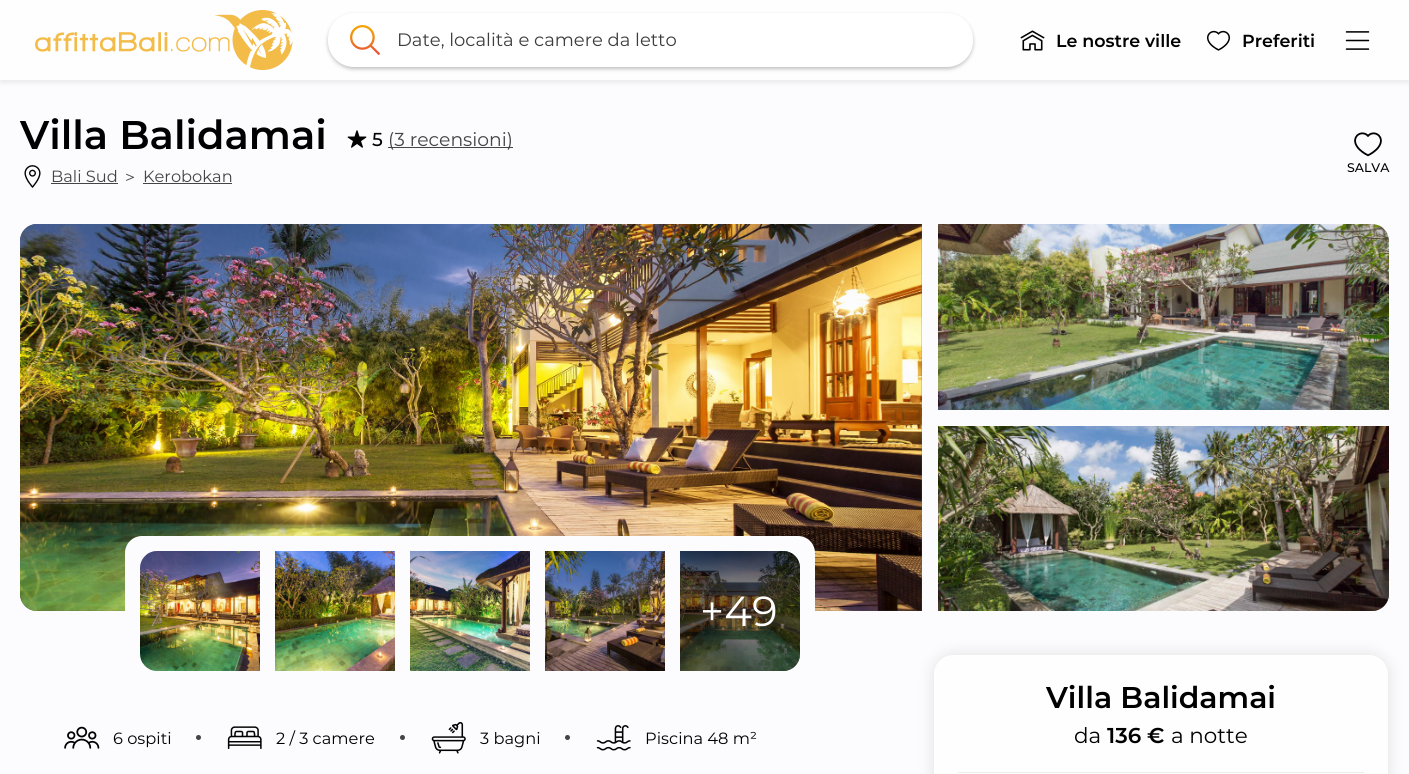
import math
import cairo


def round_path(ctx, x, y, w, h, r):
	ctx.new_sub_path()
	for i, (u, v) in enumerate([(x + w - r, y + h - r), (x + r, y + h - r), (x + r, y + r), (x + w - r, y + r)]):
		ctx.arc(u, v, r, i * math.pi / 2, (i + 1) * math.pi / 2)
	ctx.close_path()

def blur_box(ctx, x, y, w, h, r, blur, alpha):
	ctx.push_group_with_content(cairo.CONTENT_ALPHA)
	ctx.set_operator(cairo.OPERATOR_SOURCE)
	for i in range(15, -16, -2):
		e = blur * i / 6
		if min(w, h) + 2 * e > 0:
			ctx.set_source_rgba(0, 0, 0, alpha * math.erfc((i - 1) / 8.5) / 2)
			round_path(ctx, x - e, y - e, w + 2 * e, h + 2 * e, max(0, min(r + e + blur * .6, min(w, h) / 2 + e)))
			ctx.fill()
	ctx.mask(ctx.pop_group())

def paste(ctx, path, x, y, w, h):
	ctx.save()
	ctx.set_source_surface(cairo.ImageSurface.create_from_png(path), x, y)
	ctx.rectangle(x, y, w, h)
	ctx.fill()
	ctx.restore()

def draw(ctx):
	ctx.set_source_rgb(0.988, 0.988, 0.996)
	ctx.paint()
	ctx.set_source_rgb(0, 0, 0)
	blur_box(ctx, 0, 3, 1409, 80, 0, 2.5, 0.07)
	ctx.set_source_rgb(0.996, 0.996, 1)
	ctx.rectangle(0, 0, 1409, 80)
	ctx.fill()
	paste(ctx, 'media/1.png', 35, 10, 258, 60)
	ctx.set_source_rgb(0, 0, 0)
	blur_box(ctx, 328, 15, 645, 54, 26, 2, 0.25)
	ctx.set_source_rgb(1, 1, 1)
	round_path(ctx, 328, 13, 645, 54, 26)
	ctx.fill()
	paste(ctx, 'media/2.png', 350, 25, 30, 30)
	ctx.select_font_face('Montserrat')
	ctx.set_font_size(18)
	ctx.set_source_rgb(0.235, 0.235, 0.235)
	ctx.move_to(397, 46)
	ctx.show_text('Date, località e camere da letto')
	paste(ctx, 'media/3.png', 1020, 30, 25, 21)
	ctx.select_font_face('Montserrat SemiBold')
	ctx.set_font_size(17.5)
	ctx.set_source_rgb(0, 0, 0)
	ctx.move_to(1056, 47)
	ctx.show_text('Le nostre ville')
	paste(ctx, 'media/4.png', 1207, 30, 23, 21)
	ctx.move_to(1242, 47)
	ctx.show_text('Preferiti')
	paste(ctx, 'media/5.png', 1345, 31, 25, 19)
	ctx.set_font_size(40)
	ctx.move_to(20, 149)
	ctx.show_text('Villa Balidamai')
	paste(ctx, 'media/6.png', 347, 130, 20, 18)
	ctx.select_font_face('Montserrat Medium')
	ctx.set_font_size(18.75)
	ctx.move_to(372, 146)
	ctx.show_text('5')
	ctx.set_source_rgb(0.267, 0.267, 0.267)
	ctx.rectangle(388, 147, 125, 1)
	ctx.fill()
	ctx.select_font_face('Montserrat')
	ctx.move_to(388, 146)
	ctx.show_text('(3 recensioni)')
	paste(ctx, 'media/7.png', 24, 165, 17, 23)
	ctx.set_font_size(16.25)
	ctx.move_to(51, 182)
	ctx.show_text('Bali Sud')
	ctx.rectangle(51, 183, 67, 1)
	ctx.fill()
	ctx.select_font_face('WenQuanYi Zen Hei Medium')
	ctx.move_to(122, 182)
	ctx.show_text('＞')
	ctx.select_font_face('Montserrat')
	ctx.move_to(143, 182)
	ctx.show_text('Kerobokan')
	ctx.rectangle(143, 183, 89, 1)
	ctx.fill()
	paste(ctx, 'media/8.png', 1354, 132, 28, 25)
	ctx.select_font_face('Montserrat Medium')
	ctx.set_font_size(12.5)
	ctx.set_source_rgb(0, 0, 0)
	ctx.move_to(1347, 172)
	ctx.show_text('SALVA')
	ctx.set_source_rgb(0.396, 0.369, 0.302)
	ctx.new_path()
	ctx.move_to(37, 224)
	ctx.line_to(922, 224)
	ctx.line_to(922, 611)
	ctx.line_to(37, 611)
	ctx.curve_to(27.5, 611, 20, 603.5, 20, 594)
	ctx.line_to(20, 241)
	ctx.curve_to(20, 231.5, 27.5, 224, 37, 224)
	ctx.close_path()
	ctx.fill()
	paste(ctx, 'media/9.png', 20, 224, 902, 387)
	paste(ctx, 'media/10.png', 938, 224, 451, 186)
	ctx.set_source_rgb(0.384, 0.388, 0.298)
	ctx.new_path()
	ctx.move_to(938, 426)
	ctx.line_to(1389, 426)
	ctx.line_to(1389, 594)
	ctx.curve_to(1389, 603.5, 1381.5, 611, 1372, 611)
	ctx.line_to(938, 611)
	ctx.close_path()
	ctx.fill()
	paste(ctx, 'media/11.png', 938, 426, 451, 185)
	ctx.set_source_rgb(0.988, 0.988, 0.996)
	round_path(ctx, 125, 536, 690, 150, 17)
	ctx.fill()
	paste(ctx, 'media/12.png', 140, 551, 120, 120)
	paste(ctx, 'media/13.png', 275, 551, 120, 120)
	paste(ctx, 'media/14.png', 410, 551, 120, 120)
	paste(ctx, 'media/15.png', 545, 551, 120, 120)
	ctx.set_source_rgb(0.424, 0.435, 0.337)
	ctx.new_path()
	ctx.move_to(680, 551)
	ctx.line_to(783, 551)
	ctx.curve_to(792.5, 551, 800, 558.5, 800, 568)
	ctx.line_to(800, 654)
	ctx.curve_to(800, 663.5, 792.5, 671, 783, 671)
	ctx.line_to(680, 671)
	ctx.close_path()
	ctx.fill()
	paste(ctx, 'media/16.png', 680, 551, 120, 120)
	ctx.set_source_rgba(0, 0, 0, 0.5)
	ctx.new_path()
	ctx.move_to(680, 551)
	ctx.line_to(783, 551)
	ctx.curve_to(792.5, 551, 800, 558.5, 800, 568)
	ctx.line_to(800, 654)
	ctx.curve_to(800, 663.5, 792.5, 671, 783, 671)
	ctx.line_to(680, 671)
	ctx.close_path()
	ctx.fill()
	ctx.select_font_face('Montserrat')
	ctx.set_font_size(42)
	ctx.set_source_rgb(1, 1, 1)
	ctx.move_to(700, 626)
	ctx.show_text('+49')
	paste(ctx, 'media/17.png', 64, 726, 36, 23)
	ctx.set_font_size(16.25)
	ctx.set_source_rgb(0, 0, 0)
	ctx.move_to(113, 744)
	ctx.show_text('6 ospiti')
	ctx.set_source_rgb(0.267, 0.267, 0.267)
	ctx.new_path()
	ctx.arc(198.5, 737.5, 2.5, 0, 2 * math.pi)
	ctx.fill()
	paste(ctx, 'media/18.png', 227, 726, 35, 23)
	ctx.set_source_rgb(0, 0, 0)
	ctx.move_to(276, 744)
	ctx.show_text('2 / 3 camere')
	ctx.set_source_rgb(0.267, 0.267, 0.267)
	ctx.new_path()
	ctx.arc(402.5, 737.5, 2.5, 0, 2 * math.pi)
	ctx.fill()
	paste(ctx, 'media/19.png', 431, 722, 35, 32)
	ctx.set_source_rgb(0, 0, 0)
	ctx.move_to(480, 744)
	ctx.show_text('3 bagni')
	ctx.set_source_rgb(0.267, 0.267, 0.267)
	ctx.new_path()
	ctx.arc(567.5, 737.5, 2.5, 0, 2 * math.pi)
	ctx.fill()
	paste(ctx, 'media/20.png', 596, 725, 35, 26)
	ctx.set_source_rgb(0, 0, 0)
	ctx.move_to(645, 744)
	ctx.show_text('Piscina 48 m²')
	ctx.set_source_rgb(0, 0, 0)
	blur_box(ctx, 933, 654, 456, 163, 20, 7.5, 0.1)
	ctx.set_source_rgb(0.996, 0.996, 1)
	ctx.new_path()
	ctx.move_to(953, 654)
	ctx.line_to(1369, 654)
	ctx.curve_to(1380, 654, 1389, 663, 1389, 674)
	ctx.line_to(1389, 774)
	ctx.line_to(933, 774)
	ctx.line_to(933, 674)
	ctx.curve_to(933, 663, 942, 654, 953, 654)
	ctx.close_path()
	ctx.fill()
	round_path(ctx, 933.5, 654.5, 455, 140, 19.5)
	ctx.set_source_rgb(0.933, 0.933, 0.933)
	ctx.set_line_width(1)
	ctx.stroke()
	ctx.select_font_face('Montserrat SemiBold')
	ctx.set_font_size(30)
	ctx.set_source_rgb(0, 0, 0)
	ctx.move_to(1046, 708)
	ctx.show_text('Villa Balidamai')
	ctx.select_font_face('Montserrat')
	ctx.set_font_size(21.5)
	ctx.move_to(1074, 743)
	ctx.show_text('da')
	ctx.select_font_face('Montserrat SemiBold')
	ctx.move_to(1107, 743)
	ctx.show_text('136 €')
	ctx.select_font_face('Montserrat')
	ctx.move_to(1171, 743)
	ctx.show_text('a notte')
	ctx.set_source_rgb(0.922, 0.922, 0.922)
	ctx.rectangle(958, 772, 406, 1)
	ctx.fill()


surface = cairo.ImageSurface(cairo.FORMAT_RGB24, 1409, 774)
ctx = cairo.Context(surface)
options = cairo.FontOptions()
options.set_hint_metrics(cairo.HINT_METRICS_OFF)
options.set_hint_style(cairo.HINT_STYLE_NONE)
ctx.set_font_options(options)
ctx.set_miter_limit(4)
draw(ctx)
surface.write_to_png('image.png')
